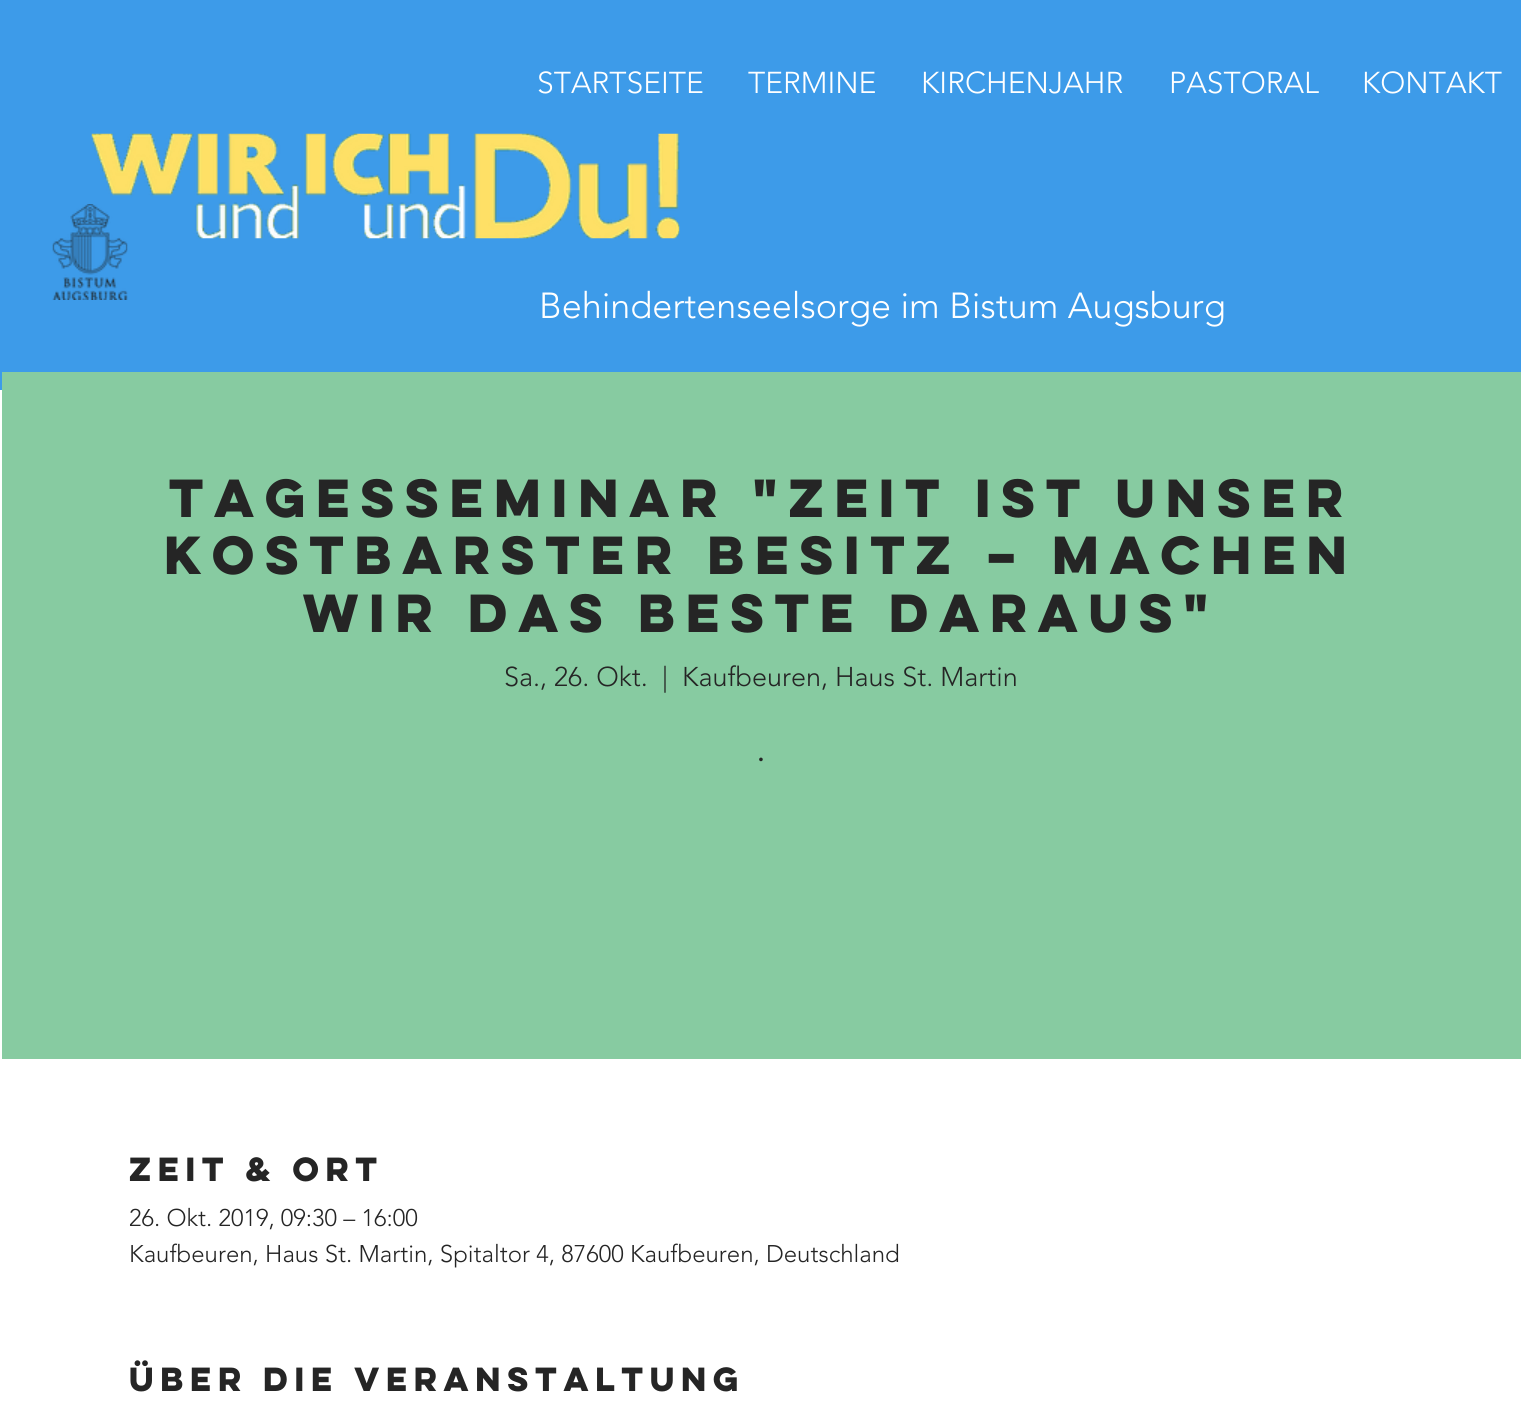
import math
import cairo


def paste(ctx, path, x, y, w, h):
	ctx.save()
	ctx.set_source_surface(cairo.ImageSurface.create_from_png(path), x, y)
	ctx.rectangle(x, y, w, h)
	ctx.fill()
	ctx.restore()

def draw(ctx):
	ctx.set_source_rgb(1, 1, 1)
	ctx.paint()
	ctx.set_source_rgb(0.239, 0.608, 0.914)
	ctx.rectangle(0, 0, 1521, 390)
	ctx.fill()
	ctx.select_font_face('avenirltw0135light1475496 Light')
	ctx.set_font_size(30)
	ctx.set_source_rgb(1, 1, 1)
	for x, y, s in [
		(537, 93, 'STARTSEITE'),
		(748, 93, 'TERMINE'),
		(921, 93, 'KIRCHENJAHR'),
		(1169, 93, 'PASTORAL'),
		(1362, 93, 'KONTAKT'),
	]:
		ctx.move_to(x, y)
		ctx.show_text(s)
	paste(ctx, 'media/1.png', 91, 133, 589, 106)
	paste(ctx, 'media/2.png', 52, 204, 76, 96)
	ctx.set_font_size(36)
	ctx.move_to(539, 318)
	ctx.show_text('Behindertenseelsorge im Bistum Augsburg')
	ctx.set_source_rgb(0.529, 0.796, 0.631)
	ctx.rectangle(2, 372, 1519, 687)
	ctx.fill()
	ctx.select_font_face('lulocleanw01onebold', cairo.FONT_SLANT_NORMAL, cairo.FONT_WEIGHT_BOLD)
	ctx.set_font_size(48)
	ctx.set_source_rgb(0.145, 0.145, 0.145)
	for x, y, s in [
		(169, 517, 'Tagesseminar "Zeit ist unser'),
		(164, 574, 'kostbarster Besitz – machen'),
		(303, 632, 'wir das Beste daraus"'),
	]:
		ctx.move_to(x, y)
		ctx.show_text(s)
	ctx.select_font_face('avenirltw0135light1475496 Light')
	ctx.set_font_size(27)
	for x, y, s in [
		(504, 686, 'Sa., 26. Okt.'),
		(662, 686, '|'),
		(682, 686, 'Kaufbeuren, Haus St. Martin'),
	]:
		ctx.move_to(x, y)
		ctx.show_text(s)
	ctx.set_font_size(38)
	ctx.move_to(756, 761)
	ctx.show_text('.')
	ctx.select_font_face('lulocleanw01onebold', cairo.FONT_SLANT_NORMAL, cairo.FONT_WEIGHT_BOLD)
	ctx.set_font_size(30)
	ctx.move_to(129, 1181)
	ctx.show_text('Zeit & Ort')
	ctx.select_font_face('avenirltw0135light1475496 Light')
	ctx.set_font_size(24)
	ctx.move_to(129, 1226)
	ctx.show_text('26. Okt. 2019, 09:30 – 16:00')
	ctx.move_to(129, 1262)
	ctx.show_text('Kaufbeuren, Haus St. Martin, Spitaltor 4, 87600 Kaufbeuren, Deutschland')
	ctx.select_font_face('lulocleanw01onebold', cairo.FONT_SLANT_NORMAL, cairo.FONT_WEIGHT_BOLD)
	ctx.set_font_size(30)
	ctx.move_to(129, 1391)
	ctx.show_text('Über die Veranstaltung')


surface = cairo.ImageSurface(cairo.FORMAT_RGB24, 1521, 1414)
ctx = cairo.Context(surface)
options = cairo.FontOptions()
options.set_hint_metrics(cairo.HINT_METRICS_OFF)
options.set_hint_style(cairo.HINT_STYLE_NONE)
ctx.set_font_options(options)
ctx.set_miter_limit(4)
draw(ctx)
surface.write_to_png('image.png')
